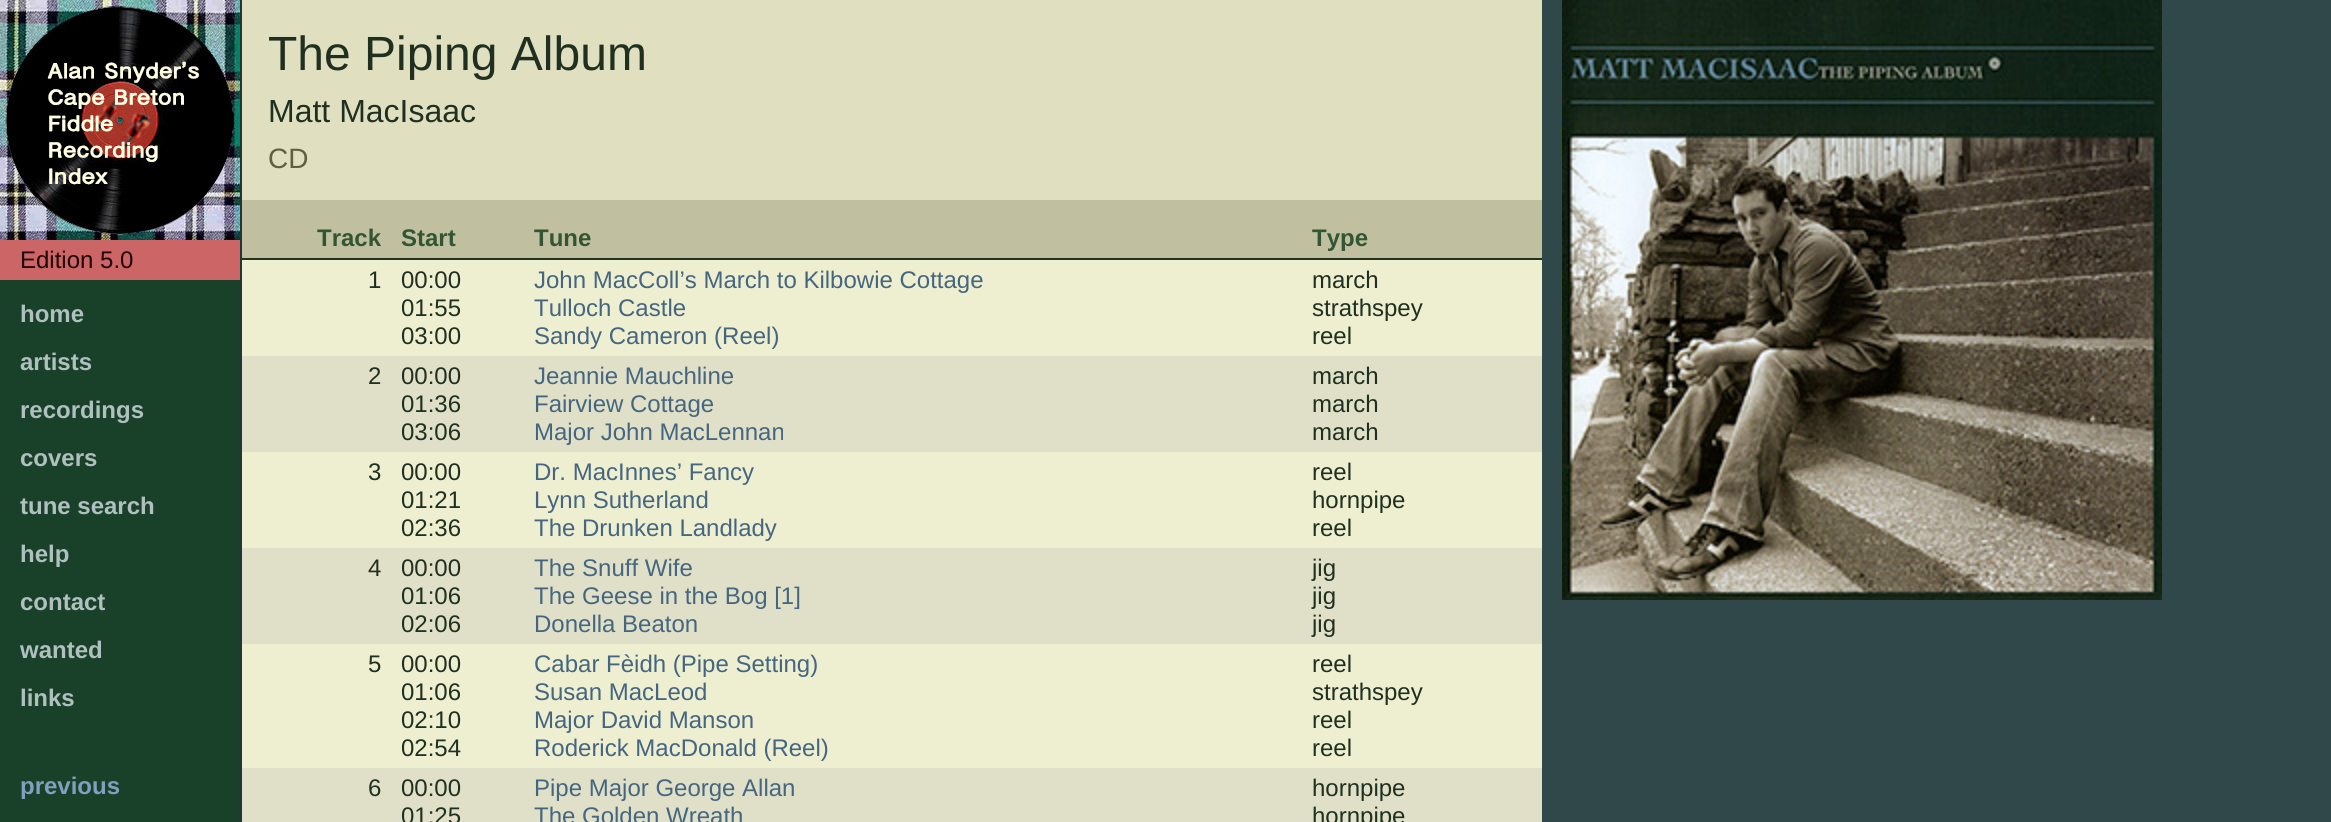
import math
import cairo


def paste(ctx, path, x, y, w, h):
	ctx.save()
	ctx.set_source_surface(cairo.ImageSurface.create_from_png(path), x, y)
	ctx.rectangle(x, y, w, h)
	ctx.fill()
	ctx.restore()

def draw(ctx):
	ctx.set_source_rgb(0.188, 0.282, 0.29)
	ctx.paint()
	ctx.set_source_rgb(0.098, 0.255, 0.161)
	ctx.rectangle(0, 280, 240, 542)
	ctx.fill()
	ctx.set_source_rgb(0.125, 0.212, 0.22)
	ctx.rectangle(240, 0, 2, 822)
	ctx.fill()
	paste(ctx, 'media/1.png', 0, 0, 240, 240)
	ctx.set_source_rgb(0.8, 0.4, 0.4)
	ctx.rectangle(0, 240, 240, 40)
	ctx.fill()
	ctx.select_font_face('Liberation Sans')
	ctx.set_font_size(24)
	ctx.set_source_rgb(0.125, 0, 0)
	ctx.move_to(20, 268)
	ctx.show_text('Edition 5.0')
	ctx.select_font_face('Liberation Sans', cairo.FONT_SLANT_NORMAL, cairo.FONT_WEIGHT_BOLD)
	ctx.set_source_rgb(0.69, 0.753, 0.753)
	for x, y, s in [
		(20, 322, 'home'),
		(20, 370, 'artists'),
		(20, 418, 'recordings'),
		(20, 466, 'covers'),
		(20, 514, 'tune search'),
		(20, 562, 'help'),
		(20, 610, 'contact'),
		(20, 658, 'wanted'),
		(20, 706, 'links'),
	]:
		ctx.move_to(x, y)
		ctx.show_text(s)
	ctx.set_source_rgb(0.502, 0.627, 0.753)
	ctx.move_to(20, 794)
	ctx.show_text('previous')
	ctx.set_source_rgb(0.878, 0.878, 0.753)
	ctx.rectangle(242, 0, 1300, 200)
	ctx.fill()
	ctx.select_font_face('Liberation Sans')
	ctx.set_font_size(48)
	ctx.set_source_rgb(0.125, 0.188, 0.125)
	ctx.move_to(268, 70)
	ctx.show_text('The Piping Album')
	ctx.set_font_size(32)
	ctx.move_to(268, 122)
	ctx.show_text('Matt MacIsaac')
	ctx.set_font_size(28)
	ctx.set_source_rgb(0.376, 0.376, 0.251)
	ctx.move_to(268, 168)
	ctx.show_text('CD')
	ctx.set_source_rgb(0.753, 0.753, 0.627)
	ctx.rectangle(242, 200, 1300, 58)
	ctx.fill()
	ctx.set_source_rgb(0.133, 0.2, 0.133)
	ctx.rectangle(242, 258, 1300, 2)
	ctx.fill()
	ctx.select_font_face('Liberation Sans', cairo.FONT_SLANT_NORMAL, cairo.FONT_WEIGHT_BOLD)
	ctx.set_font_size(24)
	ctx.set_source_rgb(0.2, 0.333, 0.2)
	for x, y, s in [
		(317, 246, 'Track'),
		(401, 246, 'Start'),
		(534, 246, 'Tune'),
		(1312, 246, 'Type'),
	]:
		ctx.move_to(x, y)
		ctx.show_text(s)
	ctx.set_source_rgb(0.933, 0.933, 0.816)
	ctx.rectangle(242, 260, 1300, 96)
	ctx.fill()
	ctx.select_font_face('Liberation Sans')
	ctx.set_source_rgb(0.125, 0.188, 0.125)
	ctx.move_to(368, 288)
	ctx.show_text('1')
	ctx.move_to(401, 288)
	ctx.show_text('00:00')
	ctx.set_source_rgb(0.267, 0.4, 0.502)
	ctx.move_to(534, 288)
	ctx.show_text('John MacColl’s March to Kilbowie Cottage')
	ctx.set_source_rgb(0.125, 0.188, 0.125)
	ctx.move_to(1312, 288)
	ctx.show_text('march')
	ctx.move_to(401, 316)
	ctx.show_text('01:55')
	ctx.set_source_rgb(0.267, 0.4, 0.502)
	ctx.move_to(534, 316)
	ctx.show_text('Tulloch Castle')
	ctx.set_source_rgb(0.125, 0.188, 0.125)
	ctx.move_to(1312, 316)
	ctx.show_text('strathspey')
	ctx.move_to(401, 344)
	ctx.show_text('03:00')
	ctx.set_source_rgb(0.267, 0.4, 0.502)
	ctx.move_to(534, 344)
	ctx.show_text('Sandy Cameron (Reel)')
	ctx.set_source_rgb(0.125, 0.188, 0.125)
	ctx.move_to(1312, 344)
	ctx.show_text('reel')
	ctx.set_source_rgb(0.878, 0.878, 0.784)
	ctx.rectangle(242, 356, 1300, 96)
	ctx.fill()
	ctx.set_source_rgb(0.125, 0.188, 0.125)
	ctx.move_to(368, 384)
	ctx.show_text('2')
	ctx.move_to(401, 384)
	ctx.show_text('00:00')
	ctx.set_source_rgb(0.267, 0.4, 0.502)
	ctx.move_to(534, 384)
	ctx.show_text('Jeannie Mauchline')
	ctx.set_source_rgb(0.125, 0.188, 0.125)
	ctx.move_to(1312, 384)
	ctx.show_text('march')
	ctx.move_to(401, 412)
	ctx.show_text('01:36')
	ctx.set_source_rgb(0.267, 0.4, 0.502)
	ctx.move_to(534, 412)
	ctx.show_text('Fairview Cottage')
	ctx.set_source_rgb(0.125, 0.188, 0.125)
	ctx.move_to(1312, 412)
	ctx.show_text('march')
	ctx.move_to(401, 440)
	ctx.show_text('03:06')
	ctx.set_source_rgb(0.267, 0.4, 0.502)
	ctx.move_to(534, 440)
	ctx.show_text('Major John MacLennan')
	ctx.set_source_rgb(0.125, 0.188, 0.125)
	ctx.move_to(1312, 440)
	ctx.show_text('march')
	ctx.set_source_rgb(0.933, 0.933, 0.816)
	ctx.rectangle(242, 452, 1300, 96)
	ctx.fill()
	ctx.set_source_rgb(0.125, 0.188, 0.125)
	ctx.move_to(368, 480)
	ctx.show_text('3')
	ctx.move_to(401, 480)
	ctx.show_text('00:00')
	ctx.set_source_rgb(0.267, 0.4, 0.502)
	ctx.move_to(534, 480)
	ctx.show_text('Dr. MacInnes’ Fancy')
	ctx.set_source_rgb(0.125, 0.188, 0.125)
	ctx.move_to(1312, 480)
	ctx.show_text('reel')
	ctx.move_to(401, 508)
	ctx.show_text('01:21')
	ctx.set_source_rgb(0.267, 0.4, 0.502)
	ctx.move_to(534, 508)
	ctx.show_text('Lynn Sutherland')
	ctx.set_source_rgb(0.125, 0.188, 0.125)
	ctx.move_to(1312, 508)
	ctx.show_text('hornpipe')
	ctx.move_to(401, 536)
	ctx.show_text('02:36')
	ctx.set_source_rgb(0.267, 0.4, 0.502)
	ctx.move_to(534, 536)
	ctx.show_text('The Drunken Landlady')
	ctx.set_source_rgb(0.125, 0.188, 0.125)
	ctx.move_to(1312, 536)
	ctx.show_text('reel')
	ctx.set_source_rgb(0.878, 0.878, 0.784)
	ctx.rectangle(242, 548, 1300, 96)
	ctx.fill()
	ctx.set_source_rgb(0.125, 0.188, 0.125)
	ctx.move_to(368, 576)
	ctx.show_text('4')
	ctx.move_to(401, 576)
	ctx.show_text('00:00')
	ctx.set_source_rgb(0.267, 0.4, 0.502)
	ctx.move_to(534, 576)
	ctx.show_text('The Snuff Wife')
	ctx.set_source_rgb(0.125, 0.188, 0.125)
	ctx.move_to(1312, 576)
	ctx.show_text('jig')
	ctx.move_to(401, 604)
	ctx.show_text('01:06')
	ctx.set_source_rgb(0.267, 0.4, 0.502)
	ctx.move_to(534, 604)
	ctx.show_text('The Geese in the Bog [1]')
	ctx.set_source_rgb(0.125, 0.188, 0.125)
	ctx.move_to(1312, 604)
	ctx.show_text('jig')
	ctx.move_to(401, 632)
	ctx.show_text('02:06')
	ctx.set_source_rgb(0.267, 0.4, 0.502)
	ctx.move_to(534, 632)
	ctx.show_text('Donella Beaton')
	ctx.set_source_rgb(0.125, 0.188, 0.125)
	ctx.move_to(1312, 632)
	ctx.show_text('jig')
	ctx.set_source_rgb(0.933, 0.933, 0.816)
	ctx.rectangle(242, 644, 1300, 124)
	ctx.fill()
	ctx.set_source_rgb(0.125, 0.188, 0.125)
	ctx.move_to(368, 672)
	ctx.show_text('5')
	ctx.move_to(401, 672)
	ctx.show_text('00:00')
	ctx.set_source_rgb(0.267, 0.4, 0.502)
	ctx.move_to(534, 672)
	ctx.show_text('Cabar Fèidh (Pipe Setting)')
	ctx.set_source_rgb(0.125, 0.188, 0.125)
	ctx.move_to(1312, 672)
	ctx.show_text('reel')
	ctx.move_to(401, 700)
	ctx.show_text('01:06')
	ctx.set_source_rgb(0.267, 0.4, 0.502)
	ctx.move_to(534, 700)
	ctx.show_text('Susan MacLeod')
	ctx.set_source_rgb(0.125, 0.188, 0.125)
	ctx.move_to(1312, 700)
	ctx.show_text('strathspey')
	ctx.move_to(401, 728)
	ctx.show_text('02:10')
	ctx.set_source_rgb(0.267, 0.4, 0.502)
	ctx.move_to(534, 728)
	ctx.show_text('Major David Manson')
	ctx.set_source_rgb(0.125, 0.188, 0.125)
	ctx.move_to(1312, 728)
	ctx.show_text('reel')
	ctx.move_to(401, 756)
	ctx.show_text('02:54')
	ctx.set_source_rgb(0.267, 0.4, 0.502)
	ctx.move_to(534, 756)
	ctx.show_text('Roderick MacDonald (Reel)')
	ctx.set_source_rgb(0.125, 0.188, 0.125)
	ctx.move_to(1312, 756)
	ctx.show_text('reel')
	ctx.set_source_rgb(0.878, 0.878, 0.784)
	ctx.rectangle(242, 768, 1300, 54)
	ctx.fill()
	ctx.set_source_rgb(0.125, 0.188, 0.125)
	ctx.move_to(368, 796)
	ctx.show_text('6')
	ctx.move_to(401, 796)
	ctx.show_text('00:00')
	ctx.set_source_rgb(0.267, 0.4, 0.502)
	ctx.move_to(534, 796)
	ctx.show_text('Pipe Major George Allan')
	ctx.set_source_rgb(0.125, 0.188, 0.125)
	ctx.move_to(1312, 796)
	ctx.show_text('hornpipe')
	ctx.move_to(401, 824)
	ctx.show_text('01:25')
	ctx.set_source_rgb(0.267, 0.4, 0.502)
	ctx.move_to(534, 824)
	ctx.show_text('The Golden Wreath')
	ctx.set_source_rgb(0.125, 0.188, 0.125)
	ctx.move_to(1312, 824)
	ctx.show_text('hornpipe')
	paste(ctx, 'media/2.png', 1562, 0, 600, 600)


surface = cairo.ImageSurface(cairo.FORMAT_RGB24, 2331, 822)
ctx = cairo.Context(surface)
options = cairo.FontOptions()
options.set_hint_metrics(cairo.HINT_METRICS_OFF)
options.set_hint_style(cairo.HINT_STYLE_NONE)
ctx.set_font_options(options)
ctx.set_miter_limit(4)
draw(ctx)
surface.write_to_png('image.png')
